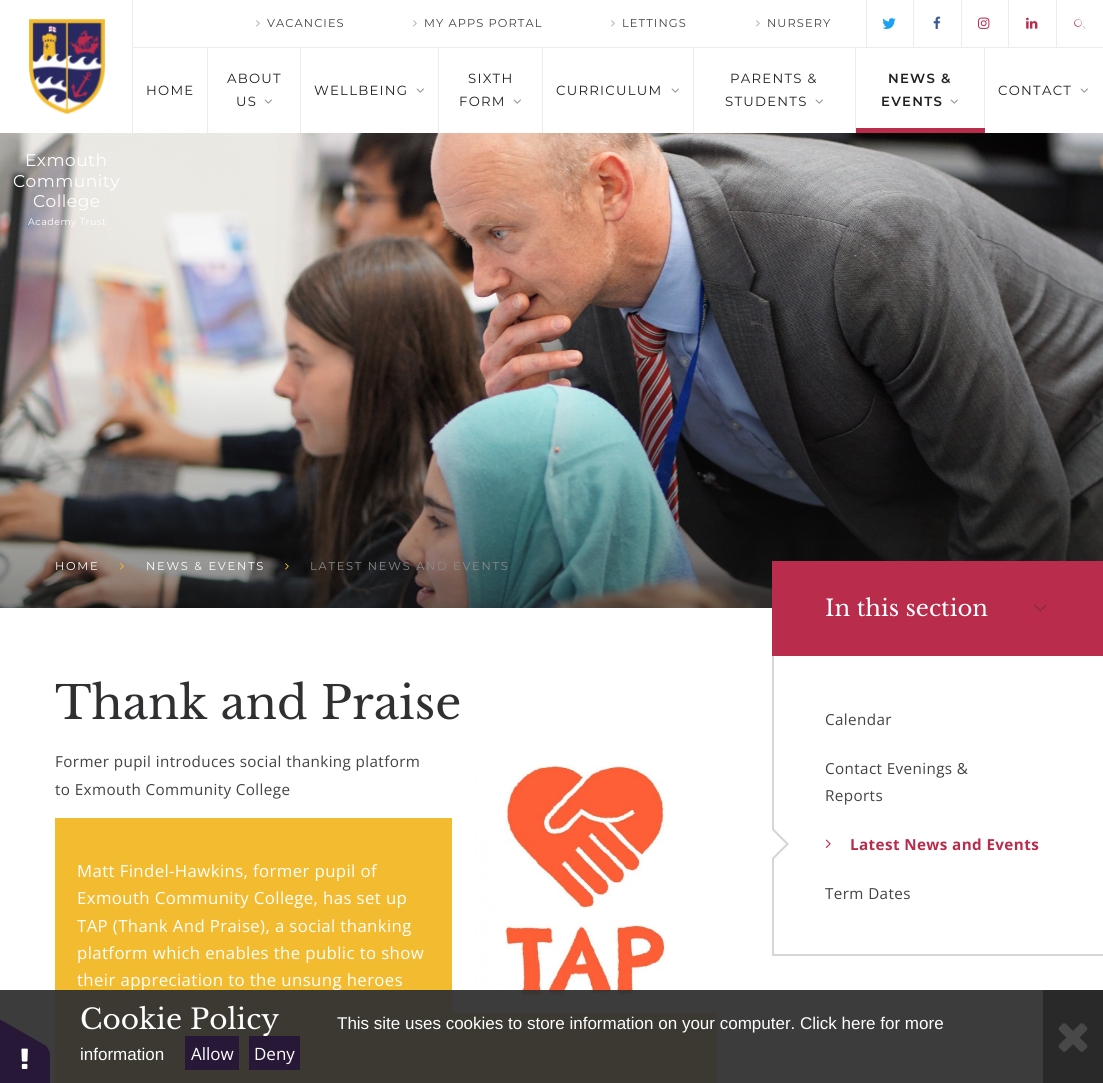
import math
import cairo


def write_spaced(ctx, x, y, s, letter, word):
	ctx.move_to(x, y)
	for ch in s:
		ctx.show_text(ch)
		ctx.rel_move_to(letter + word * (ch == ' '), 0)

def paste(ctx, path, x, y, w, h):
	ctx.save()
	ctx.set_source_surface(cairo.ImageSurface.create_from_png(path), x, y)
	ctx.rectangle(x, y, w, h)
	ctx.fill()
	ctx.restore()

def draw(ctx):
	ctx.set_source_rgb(1, 1, 1)
	ctx.paint()
	paste(ctx, 'media/1.png', 256, 20, 4, 7)
	ctx.select_font_face('Montserrat')
	ctx.set_font_size(11.4)
	ctx.set_source_rgb(0.263, 0.263, 0.263)
	write_spaced(ctx, 267, 27, 'VACANCIES', 1.1, 0)
	paste(ctx, 'media/1.png', 413, 20, 4, 7)
	write_spaced(ctx, 424, 27, 'MY APPS PORTAL', 1.1, 0)
	paste(ctx, 'media/1.png', 611, 20, 4, 7)
	write_spaced(ctx, 622, 27, 'LETTINGS', 1.1, 0)
	paste(ctx, 'media/1.png', 756, 20, 4, 7)
	write_spaced(ctx, 767, 27, 'NURSERY', 1.1, 0)
	ctx.set_source_rgb(0.922, 0.922, 0.922)
	ctx.rectangle(133, 47, 970, 1)
	ctx.fill()
	ctx.rectangle(866, 0, 1, 48)
	ctx.fill()
	paste(ctx, 'media/2.png', 882, 18, 14, 11)
	ctx.rectangle(913, 0, 1, 48)
	ctx.fill()
	paste(ctx, 'media/3.png', 933, 16, 8, 13)
	ctx.rectangle(961, 0, 1, 48)
	ctx.fill()
	paste(ctx, 'media/4.png', 978, 17, 12, 12)
	ctx.rectangle(1008, 0, 1, 48)
	ctx.fill()
	paste(ctx, 'media/5.png', 1026, 17, 12, 12)
	ctx.rectangle(1056, 0, 1, 48)
	ctx.fill()
	paste(ctx, 'media/6.png', 1073, 17, 13, 13)
	paste(ctx, 'media/7.png', 1073, 17, 13, 13)
	ctx.rectangle(207, 48, 1, 85)
	ctx.fill()
	ctx.set_font_size(13.25)
	ctx.set_source_rgb(0.129, 0.129, 0.129)
	write_spaced(ctx, 146, 95, 'HOME', 1.25, 0)
	ctx.set_source_rgb(0.922, 0.922, 0.922)
	ctx.rectangle(300, 48, 1, 85)
	ctx.fill()
	ctx.set_source_rgb(0.129, 0.129, 0.129)
	write_spaced(ctx, 227, 83, 'ABOUT', 1.25, 0)
	write_spaced(ctx, 236, 106, 'US', 1.25, 0)
	paste(ctx, 'media/8.png', 264, 99, 8, 5)
	ctx.set_source_rgb(0.922, 0.922, 0.922)
	ctx.rectangle(438, 48, 1, 85)
	ctx.fill()
	ctx.set_source_rgb(0.129, 0.129, 0.129)
	write_spaced(ctx, 314, 95, 'WELLBEING', 1.25, 0)
	paste(ctx, 'media/8.png', 416, 88, 8, 5)
	ctx.set_source_rgb(0.922, 0.922, 0.922)
	ctx.rectangle(542, 48, 1, 85)
	ctx.fill()
	ctx.set_source_rgb(0.129, 0.129, 0.129)
	write_spaced(ctx, 468, 83, 'SIXTH', 1.25, 0)
	write_spaced(ctx, 459, 106, 'FORM', 1.25, 0)
	paste(ctx, 'media/8.png', 513, 99, 8, 5)
	ctx.set_source_rgb(0.922, 0.922, 0.922)
	ctx.rectangle(693, 48, 1, 85)
	ctx.fill()
	ctx.set_source_rgb(0.129, 0.129, 0.129)
	write_spaced(ctx, 556, 95, 'CURRICULUM', 1.25, 0)
	paste(ctx, 'media/8.png', 671, 88, 8, 5)
	ctx.set_source_rgb(0.922, 0.922, 0.922)
	ctx.rectangle(855, 48, 1, 85)
	ctx.fill()
	ctx.set_source_rgb(0.129, 0.129, 0.129)
	write_spaced(ctx, 730, 83, 'PARENTS &', 1.25, 0)
	write_spaced(ctx, 725, 106, 'STUDENTS', 1.25, 0)
	paste(ctx, 'media/8.png', 815, 99, 8, 5)
	ctx.set_source_rgb(0.922, 0.922, 0.922)
	ctx.rectangle(984, 48, 1, 85)
	ctx.fill()
	ctx.select_font_face('Montserrat SemiBold')
	ctx.set_source_rgb(0.129, 0.129, 0.129)
	write_spaced(ctx, 888, 83, 'NEWS &', 1.25, 0)
	write_spaced(ctx, 881, 106, 'EVENTS', 1.25, 0)
	paste(ctx, 'media/8.png', 950, 99, 8, 5)
	ctx.set_source_rgb(0.729, 0.173, 0.298)
	ctx.rectangle(856, 128, 129, 5)
	ctx.fill()
	ctx.select_font_face('Montserrat')
	ctx.set_source_rgb(0.129, 0.129, 0.129)
	write_spaced(ctx, 998, 95, 'CONTACT', 1.25, 0)
	paste(ctx, 'media/8.png', 1080, 88, 8, 5)
	ctx.set_source_rgb(0.922, 0.922, 0.922)
	ctx.rectangle(132, 0, 1, 133)
	ctx.fill()
	paste(ctx, 'media/9.png', 29, 19, 76, 95)
	paste(ctx, 'media/10.png', 0, 133, 1103, 475)
	ctx.set_font_size(17)
	ctx.set_source_rgb(1, 1, 1)
	for x, y, s in [
		(25, 166, 'Exmouth'),
		(13, 187, 'Community'),
		(33, 207, 'College'),
	]:
		write_spaced(ctx, x, y, s, 0.5, 0)
	ctx.set_font_size(9.5)
	write_spaced(ctx, 28, 225, 'Academy Trust', 0.5, 0)
	ctx.set_font_size(11.4)
	write_spaced(ctx, 55, 570, 'HOME', 1.75, 0)
	paste(ctx, 'media/11.png', 120, 563, 4, 7)
	write_spaced(ctx, 146, 570, 'NEWS & EVENTS', 1.75, 0)
	paste(ctx, 'media/12.png', 285, 563, 4, 7)
	ctx.set_source_rgb(0.545, 0.545, 0.541)
	write_spaced(ctx, 310, 570, 'LATEST NEWS AND EVENTS', 1.75, 0)
	ctx.select_font_face('Libre Baskerville')
	ctx.set_font_size(45.5)
	ctx.set_source_rgb(0.188, 0.188, 0.2)
	ctx.move_to(55, 719)
	ctx.show_text('Thank and Praise')
	ctx.select_font_face('Open Sans')
	ctx.set_font_size(15.2)
	ctx.set_source_rgb(0.263, 0.263, 0.263)
	write_spaced(ctx, 55, 767, 'Former pupil introduces social thanking platform', 0.4, 0)
	write_spaced(ctx, 55, 795, 'to Exmouth Community College', 0.4, 0)
	ctx.set_source_rgb(0.953, 0.733, 0.188)
	ctx.rectangle(55, 818, 662, 265)
	ctx.fill()
	paste(ctx, 'media/13.png', 452, 763, 265, 250)
	ctx.set_font_size(16.75)
	ctx.set_source_rgb(1, 1, 1)
	for x, y, s in [
		(77, 877, 'Matt Findel-Hawkins, former pupil of'),
		(77, 904, 'Exmouth Community College, has set up'),
		(77, 932, 'TAP (Thank And Praise), a social thanking'),
		(77, 959, 'platform which enables the public to show'),
		(77, 986, 'their appreciation to the unsung heroes'),
	]:
		write_spaced(ctx, x, y, s, 0.4, 0)
	ctx.set_source_rgb(0.729, 0.173, 0.298)
	ctx.rectangle(772, 561, 331, 95)
	ctx.fill()
	ctx.select_font_face('Libre Baskerville')
	ctx.set_font_size(22.75)
	ctx.set_source_rgb(1, 1, 1)
	ctx.move_to(825, 616)
	ctx.show_text('In this section')
	paste(ctx, 'media/14.png', 1034, 604, 13, 8)
	ctx.set_source_rgb(0.839, 0.839, 0.839)
	ctx.rectangle(772, 954, 331, 2)
	ctx.fill()
	ctx.rectangle(772, 656, 2, 300)
	ctx.fill()
	ctx.select_font_face('Open Sans')
	ctx.set_font_size(15.2)
	ctx.set_source_rgb(0.263, 0.263, 0.263)
	for x, y, s in [
		(825, 725, 'Calendar'),
		(825, 774, 'Contact Evenings &'),
		(825, 801, 'Reports'),
	]:
		write_spaced(ctx, x, y, s, 0.4, 0)
	ctx.set_source_rgb(0.839, 0.839, 0.839)
	ctx.new_path()
	ctx.move_to(774, 829)
	ctx.line_to(789, 844)
	ctx.line_to(774, 859)
	ctx.close_path()
	ctx.fill()
	ctx.set_source_rgb(1, 1, 1)
	ctx.new_path()
	ctx.move_to(771, 829)
	ctx.line_to(786, 844)
	ctx.line_to(771, 859)
	ctx.close_path()
	ctx.fill()
	paste(ctx, 'media/15.png', 825, 839, 6, 9)
	ctx.select_font_face('Open Sans', cairo.FONT_SLANT_NORMAL, cairo.FONT_WEIGHT_BOLD)
	ctx.set_source_rgb(0.729, 0.173, 0.298)
	write_spaced(ctx, 850, 850, 'Latest News and Events', 0.4, 0)
	ctx.select_font_face('Open Sans')
	ctx.set_source_rgb(0.263, 0.263, 0.263)
	write_spaced(ctx, 825, 899, 'Term Dates', 0.4, 0)
	ctx.set_source_rgba(0.2, 0.2, 0.2, 0.95)
	ctx.rectangle(0, 990, 1043, 93)
	ctx.fill()
	ctx.set_source_rgb(0.157, 0.094, 0.22)
	ctx.new_path()
	ctx.move_to(50, 1056)
	ctx.line_to(50, 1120)
	ctx.curve_to(50, 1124, 48, 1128, 46, 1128)
	ctx.line_to(-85, 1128)
	ctx.curve_to(-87, 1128, -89, 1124, -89, 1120)
	ctx.line_to(-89, 1056)
	ctx.curve_to(-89, 1051, -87, 1048, -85, 1048)
	ctx.line_to(46, 1048)
	ctx.curve_to(48, 1048, 50, 1051, 50, 1056)
	ctx.close_path()
	ctx.fill()
	ctx.new_path()
	ctx.move_to(-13, 1012)
	ctx.line_to(43, 1044)
	ctx.curve_to(47, 1046, 49, 1049, 48, 1051)
	ctx.line_to(-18, 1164)
	ctx.curve_to(-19, 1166, -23, 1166, -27, 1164)
	ctx.line_to(-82, 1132)
	ctx.curve_to(-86, 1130, -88, 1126, -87, 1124)
	ctx.line_to(-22, 1011)
	ctx.curve_to(-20, 1009, -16, 1010, -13, 1012)
	ctx.close_path()
	ctx.fill()
	paste(ctx, 'media/16.png', 21, 1048, 7, 21)
	ctx.select_font_face('Libre Baskerville')
	ctx.set_font_size(28)
	ctx.set_source_rgb(1, 1, 1)
	ctx.move_to(80, 1029)
	ctx.show_text('Cookie Policy')
	ctx.select_font_face('Liberation Sans')
	ctx.set_font_size(17)
	ctx.move_to(337, 1029)
	ctx.show_text('This site uses cookies to store information on your computer. Click here for more')
	ctx.move_to(80, 1060)
	ctx.show_text('information')
	ctx.set_source_rgb(0.157, 0.094, 0.22)
	ctx.rectangle(185, 1036, 54, 34)
	ctx.fill()
	ctx.select_font_face('Open Sans')
	ctx.set_source_rgb(1, 1, 1)
	ctx.move_to(191, 1060)
	ctx.show_text('Allow')
	ctx.set_source_rgb(0.157, 0.094, 0.22)
	ctx.rectangle(249, 1036, 51, 34)
	ctx.fill()
	ctx.set_source_rgb(1, 1, 1)
	ctx.move_to(254, 1060)
	ctx.show_text('Deny')
	ctx.set_source_rgb(0.161, 0.161, 0.161)
	ctx.rectangle(1043, 990, 60, 93)
	ctx.fill()
	paste(ctx, 'media/17.png', 1058, 1023, 30, 29)


surface = cairo.ImageSurface(cairo.FORMAT_RGB24, 1103, 1083)
ctx = cairo.Context(surface)
options = cairo.FontOptions()
options.set_hint_metrics(cairo.HINT_METRICS_OFF)
options.set_hint_style(cairo.HINT_STYLE_NONE)
ctx.set_font_options(options)
ctx.set_miter_limit(4)
draw(ctx)
surface.write_to_png('image.png')
